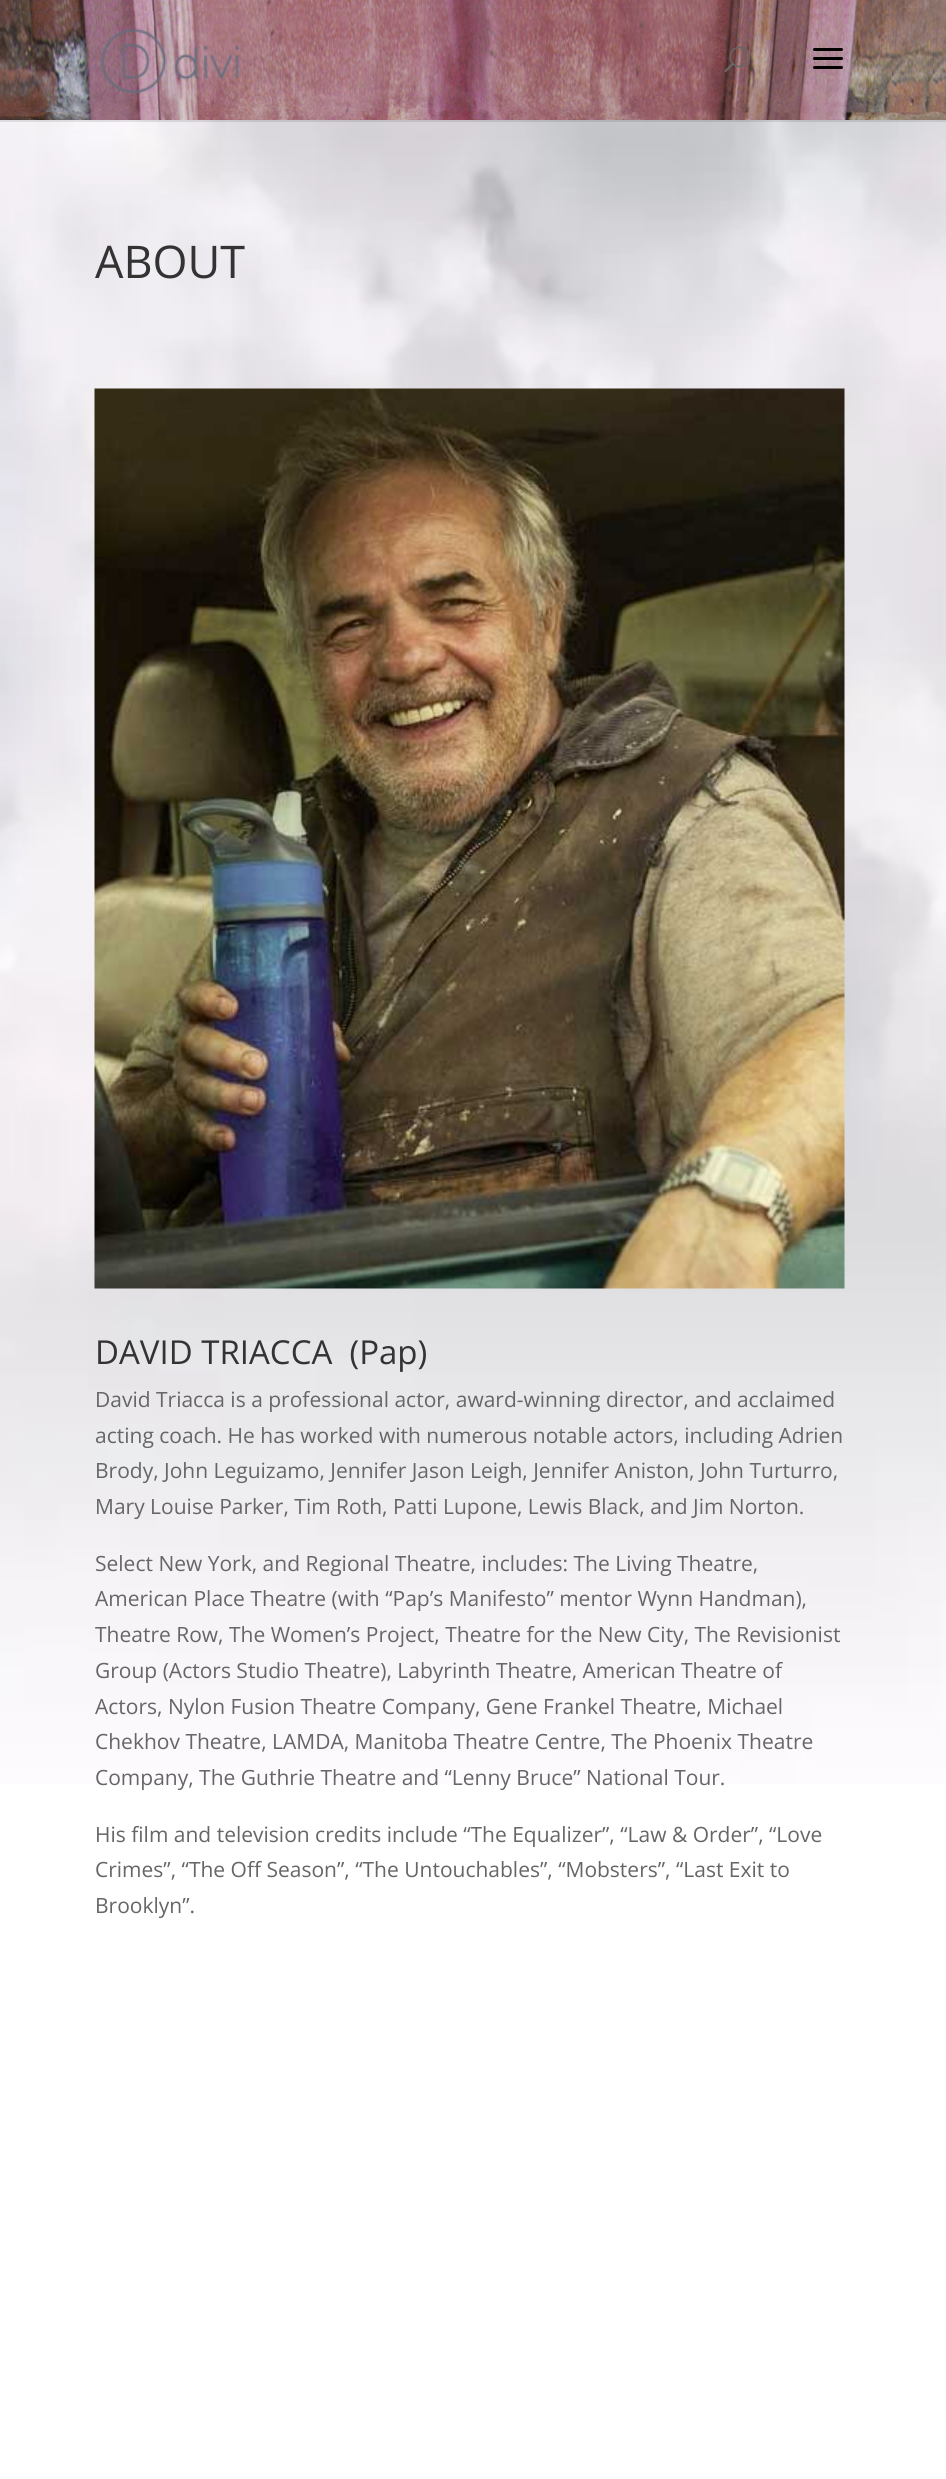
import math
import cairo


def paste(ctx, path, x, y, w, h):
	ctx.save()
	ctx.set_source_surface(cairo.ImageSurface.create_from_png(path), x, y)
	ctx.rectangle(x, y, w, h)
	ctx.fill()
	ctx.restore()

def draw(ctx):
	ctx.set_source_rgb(1, 1, 1)
	ctx.paint()
	paste(ctx, 'media/1.png', 0, 120, 946, 1664)
	ctx.set_source_rgba(0, 0, 0, 0.1)
	ctx.new_path()
	ctx.move_to(0, 120)
	ctx.line_to(0, 122)
	ctx.line_to(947, 122)
	ctx.line_to(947, 2)
	ctx.line_to(946, 2)
	ctx.line_to(946, 120)
	ctx.close_path()
	ctx.fill()
	paste(ctx, 'media/2.png', 0, 0, 946, 120)
	paste(ctx, 'media/3.png', 100, 28, 140, 65)
	paste(ctx, 'media/4.png', 724, 46, 26, 27)
	paste(ctx, 'media/5.png', 813, 48, 30, 21)
	ctx.select_font_face('Open Sans')
	ctx.set_font_size(45)
	ctx.set_source_rgb(0.2, 0.2, 0.2)
	ctx.move_to(95, 278)
	ctx.show_text('ABOUT')
	paste(ctx, 'media/6.png', 94, 388, 751, 901)
	ctx.set_font_size(33)
	ctx.move_to(95, 1364)
	ctx.show_text('DAVID TRIACCA  (Pap)')
	ctx.set_font_size(21)
	ctx.set_source_rgb(0.4, 0.4, 0.4)
	for x, y, s in [
		(95, 1407, 'David Triacca is a professional actor, award-winning director, and acclaimed'),
		(95, 1443, 'acting coach. He has worked with numerous notable actors, including Adrien'),
		(95, 1478, 'Brody, John Leguizamo, Jennifer Jason Leigh, Jennifer Aniston, John Turturro,'),
		(95, 1514, 'Mary Louise Parker, Tim Roth, Patti Lupone, Lewis Black, and Jim Norton.'),
		(95, 1571, 'Select New York, and Regional Theatre, includes: The Living Theatre,'),
		(95, 1606, 'American Place Theatre (with “Pap’s Manifesto” mentor Wynn Handman),'),
		(95, 1642, 'Theatre Row, The Women’s Project, Theatre for the New City, The Revisionist'),
		(95, 1678, 'Group (Actors Studio Theatre), Labyrinth Theatre, American Theatre of'),
		(95, 1714, 'Actors, Nylon Fusion Theatre Company, Gene Frankel Theatre, Michael'),
		(95, 1749, 'Chekhov Theatre, LAMDA, Manitoba Theatre Centre, The Phoenix Theatre'),
		(95, 1785, 'Company, The Guthrie Theatre and “Lenny Bruce” National Tour.'),
		(95, 1842, 'His film and television credits include “The Equalizer”, “Law & Order”, “Love'),
		(95, 1877, 'Crimes”, “The Off Season”, “The Untouchables”, “Mobsters”, “Last Exit to'),
		(95, 1913, 'Brooklyn”.'),
	]:
		ctx.move_to(x, y)
		ctx.show_text(s)


surface = cairo.ImageSurface(cairo.FORMAT_RGB24, 946, 2479)
ctx = cairo.Context(surface)
options = cairo.FontOptions()
options.set_hint_metrics(cairo.HINT_METRICS_OFF)
options.set_hint_style(cairo.HINT_STYLE_NONE)
ctx.set_font_options(options)
ctx.set_miter_limit(4)
draw(ctx)
surface.write_to_png('image.png')
